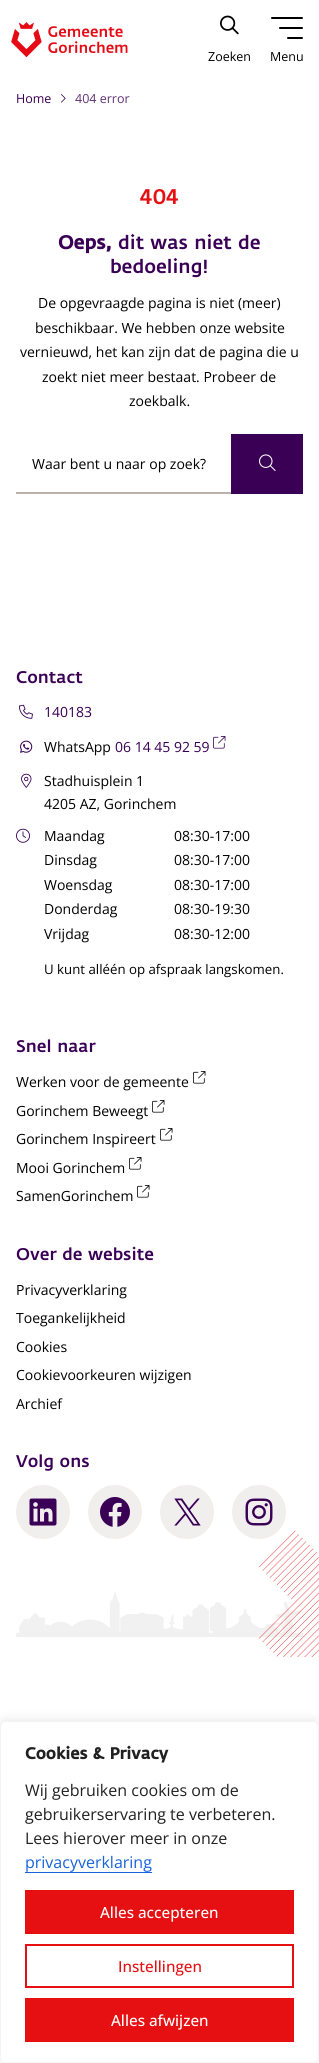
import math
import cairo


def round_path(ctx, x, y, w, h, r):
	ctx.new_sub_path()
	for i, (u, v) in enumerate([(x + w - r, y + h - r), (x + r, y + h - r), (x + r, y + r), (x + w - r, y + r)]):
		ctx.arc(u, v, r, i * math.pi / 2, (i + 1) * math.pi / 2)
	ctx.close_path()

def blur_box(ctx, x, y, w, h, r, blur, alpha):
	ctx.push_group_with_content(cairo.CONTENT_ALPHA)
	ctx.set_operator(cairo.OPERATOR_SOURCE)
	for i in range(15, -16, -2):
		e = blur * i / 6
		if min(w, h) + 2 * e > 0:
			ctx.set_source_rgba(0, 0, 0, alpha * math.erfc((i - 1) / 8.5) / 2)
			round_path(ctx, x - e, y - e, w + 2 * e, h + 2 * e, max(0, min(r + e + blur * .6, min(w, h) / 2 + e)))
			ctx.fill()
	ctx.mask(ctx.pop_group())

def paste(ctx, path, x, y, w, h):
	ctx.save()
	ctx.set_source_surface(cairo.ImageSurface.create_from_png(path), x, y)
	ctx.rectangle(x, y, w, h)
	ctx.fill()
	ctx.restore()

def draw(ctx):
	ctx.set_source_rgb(1, 1, 1)
	ctx.paint()
	paste(ctx, 'media/1.png', 11, 22, 117, 36)
	paste(ctx, 'media/2.png', 220, 15, 19, 20)
	ctx.select_font_face('Open Sans')
	ctx.set_font_size(12.5)
	ctx.set_source_rgb(0, 0, 0)
	ctx.move_to(208, 61)
	ctx.show_text('Zoeken')
	round_path(ctx, 271, 17, 32, 2, 1)
	ctx.fill()
	round_path(ctx, 279, 27, 24, 2, 1)
	ctx.fill()
	round_path(ctx, 287, 37, 16, 2, 1)
	ctx.fill()
	ctx.move_to(270, 61)
	ctx.show_text('Menu')
	ctx.set_source_rgb(0.227, 0, 0.337)
	ctx.move_to(16, 103)
	ctx.show_text('Home')
	paste(ctx, 'media/3.png', 61, 94, 5, 9)
	ctx.set_source_rgb(0.38, 0.2, 0.471)
	ctx.move_to(75, 103)
	ctx.show_text('404 error')
	ctx.select_font_face('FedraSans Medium')
	ctx.set_font_size(21)
	ctx.set_source_rgb(0.902, 0.063, 0.078)
	ctx.move_to(140, 204)
	ctx.show_text('404')
	ctx.select_font_face('FedraSans', cairo.FONT_SLANT_NORMAL, cairo.FONT_WEIGHT_BOLD)
	ctx.set_font_size(18.75)
	ctx.set_source_rgb(0.227, 0, 0.337)
	ctx.move_to(58, 249)
	ctx.show_text('Oeps,')
	ctx.select_font_face('FedraSans Medium')
	ctx.move_to(118, 249)
	ctx.show_text('dit was niet de')
	ctx.move_to(110, 273)
	ctx.show_text('bedoeling!')
	ctx.select_font_face('Open Sans')
	ctx.set_font_size(14)
	ctx.set_source_rgb(0, 0, 0)
	for x, y, s in [
		(38, 308, 'De opgevraagde pagina is niet (meer)'),
		(35, 333, 'beschikbaar. We hebben onze website'),
		(20, 357, 'vernieuwd, het kan zijn dat de pagina die u'),
		(42, 382, 'zoekt niet meer bestaat. Probeer de'),
		(129, 406, 'zoekbalk.'),
	]:
		ctx.move_to(x, y)
		ctx.show_text(s)
	ctx.set_source_rgb(0.733, 0.698, 0.682)
	ctx.rectangle(16, 492, 215, 2)
	ctx.fill()
	ctx.set_source_rgb(0.227, 0, 0.337)
	ctx.rectangle(231, 434, 72, 60)
	ctx.fill()
	paste(ctx, 'media/4.png', 259, 454, 17, 17)
	ctx.set_source_rgb(0, 0, 0)
	ctx.move_to(32, 469)
	ctx.show_text('Waar bent u naar op zoek?')
	ctx.select_font_face('FedraSans Medium')
	ctx.set_font_size(16.75)
	ctx.set_source_rgb(0.227, 0, 0.337)
	ctx.move_to(16, 683)
	ctx.show_text('Contact')
	paste(ctx, 'media/5.png', 19, 704, 14, 15)
	ctx.select_font_face('Open Sans')
	ctx.set_font_size(14)
	ctx.move_to(44, 717)
	ctx.show_text('140183')
	paste(ctx, 'media/6.png', 20, 740, 13, 13)
	ctx.set_source_rgb(0, 0, 0)
	ctx.move_to(44, 752)
	ctx.show_text('WhatsApp')
	ctx.set_source_rgb(0.227, 0, 0.337)
	ctx.move_to(115, 752)
	ctx.show_text('06 14 45 92 59')
	paste(ctx, 'media/7.png', 213, 736, 13, 13)
	paste(ctx, 'media/8.png', 21, 773, 11, 15)
	ctx.set_source_rgb(0, 0, 0)
	ctx.move_to(44, 786)
	ctx.show_text('Stadhuisplein 1')
	ctx.move_to(44, 809)
	ctx.show_text('4205 AZ, Gorinchem')
	paste(ctx, 'media/9.png', 16, 828, 14, 15)
	for x, y, s in [
		(44, 841, 'Maandag'),
		(174, 841, '08:30-17:00'),
		(44, 865, 'Dinsdag'),
		(174, 865, '08:30-17:00'),
		(44, 890, 'Woensdag'),
		(174, 890, '08:30-17:00'),
		(44, 914, 'Donderdag'),
		(174, 914, '08:30-19:30'),
		(44, 939, 'Vrijdag'),
		(174, 939, '08:30-12:00'),
	]:
		ctx.move_to(x, y)
		ctx.show_text(s)
	ctx.set_font_size(13.25)
	ctx.move_to(44, 974)
	ctx.show_text('U kunt alléén op afspraak langskomen.')
	ctx.select_font_face('FedraSans Medium')
	ctx.set_font_size(16.75)
	ctx.set_source_rgb(0.227, 0, 0.337)
	ctx.move_to(16, 1052)
	ctx.show_text('Snel naar')
	ctx.select_font_face('Open Sans')
	ctx.set_font_size(14)
	ctx.set_source_rgb(0, 0, 0)
	ctx.move_to(16, 1087)
	ctx.show_text('Werken voor de gemeente')
	paste(ctx, 'media/10.png', 193, 1071, 13, 13)
	ctx.move_to(16, 1116)
	ctx.show_text('Gorinchem Beweegt')
	paste(ctx, 'media/10.png', 152, 1100, 13, 13)
	ctx.move_to(16, 1144)
	ctx.show_text('Gorinchem Inspireert')
	paste(ctx, 'media/10.png', 160, 1128, 13, 13)
	ctx.move_to(16, 1173)
	ctx.show_text('Mooi Gorinchem')
	paste(ctx, 'media/10.png', 129, 1157, 13, 13)
	ctx.move_to(16, 1201)
	ctx.show_text('SamenGorinchem')
	paste(ctx, 'media/10.png', 137, 1185, 13, 13)
	ctx.select_font_face('FedraSans Medium')
	ctx.set_font_size(16.75)
	ctx.set_source_rgb(0.227, 0, 0.337)
	ctx.move_to(16, 1260)
	ctx.show_text('Over de website')
	ctx.select_font_face('Open Sans')
	ctx.set_font_size(14)
	ctx.set_source_rgb(0, 0, 0)
	for x, y, s in [
		(16, 1295, 'Privacyverklaring'),
		(16, 1323, 'Toegankelijkheid'),
		(16, 1352, 'Cookies'),
		(16, 1380, 'Cookievoorkeuren wijzigen'),
		(16, 1409, 'Archief'),
	]:
		ctx.move_to(x, y)
		ctx.show_text(s)
	ctx.select_font_face('FedraSans Medium')
	ctx.set_font_size(16.75)
	ctx.set_source_rgb(0.227, 0, 0.337)
	ctx.move_to(16, 1467)
	ctx.show_text('Volg ons')
	ctx.set_source_rgb(0.945, 0.937, 0.933)
	ctx.new_path()
	ctx.arc(43, 1512, 27, 0, 2 * math.pi)
	ctx.fill()
	paste(ctx, 'media/11.png', 29, 1498, 28, 28)
	ctx.arc(115, 1512, 27, 0, 2 * math.pi)
	ctx.fill()
	paste(ctx, 'media/12.png', 100, 1497, 30, 30)
	ctx.arc(187, 1512, 27, 0, 2 * math.pi)
	ctx.fill()
	paste(ctx, 'media/13.png', 174, 1498, 27, 28)
	paste(ctx, 'media/16.png', 16, 1592, 287, 45)
	paste(ctx, 'media/15.png', 259, 1530, 60, 127)
	ctx.arc(259, 1512, 27, 0, 2 * math.pi)
	ctx.fill()
	paste(ctx, 'media/14.png', 245, 1498, 28, 28)
	ctx.set_source_rgb(0.675, 0.671, 0.671)
	blur_box(ctx, 0, 1720, 319, 342, 6, 5, 0.3)
	ctx.set_source_rgb(1, 1, 1)
	round_path(ctx, 0.5, 1721.5, 318, 341, 5.5)
	ctx.fill_preserve()
	ctx.set_source_rgb(0.957, 0.957, 0.957)
	ctx.set_line_width(1)
	ctx.stroke()
	ctx.select_font_face('FedraSans', cairo.FONT_SLANT_NORMAL, cairo.FONT_WEIGHT_BOLD)
	ctx.set_font_size(16)
	ctx.set_source_rgb(0.129, 0.129, 0.129)
	ctx.move_to(25, 1759)
	ctx.show_text('Cookies & Privacy')
	ctx.select_font_face('Open Sans')
	for x, y, s in [
		(25, 1796, 'Wij gebruiken cookies om de'),
		(25, 1820, 'gebruikerservaring te verbeteren.'),
		(25, 1844, 'Lees hierover meer in onze'),
	]:
		ctx.move_to(x, y)
		ctx.show_text(s)
	ctx.set_source_rgb(0.094, 0.388, 0.863)
	ctx.move_to(25, 1868)
	ctx.show_text('privacyverklaring')
	ctx.rectangle(25, 1872, 127, 1)
	ctx.fill()
	ctx.set_source_rgb(0.902, 0.063, 0.078)
	ctx.rectangle(25, 1890, 269, 44)
	ctx.fill()
	ctx.select_font_face('Open Sans Medium')
	ctx.set_font_size(15.25)
	ctx.set_source_rgb(1, 1, 1)
	ctx.move_to(100, 1918)
	ctx.show_text('Alles accepteren')
	ctx.rectangle(26, 1945, 267, 42)
	ctx.set_source_rgb(0.902, 0.063, 0.078)
	ctx.set_line_width(2)
	ctx.stroke()
	ctx.move_to(118, 1972)
	ctx.show_text('Instellingen')
	ctx.rectangle(25, 1998, 269, 44)
	ctx.fill()
	ctx.set_source_rgb(1, 1, 1)
	ctx.move_to(111, 2026)
	ctx.show_text('Alles afwijzen')


surface = cairo.ImageSurface(cairo.FORMAT_RGB24, 319, 2063)
ctx = cairo.Context(surface)
options = cairo.FontOptions()
options.set_hint_metrics(cairo.HINT_METRICS_OFF)
options.set_hint_style(cairo.HINT_STYLE_NONE)
ctx.set_font_options(options)
ctx.set_miter_limit(4)
draw(ctx)
surface.write_to_png('image.png')
